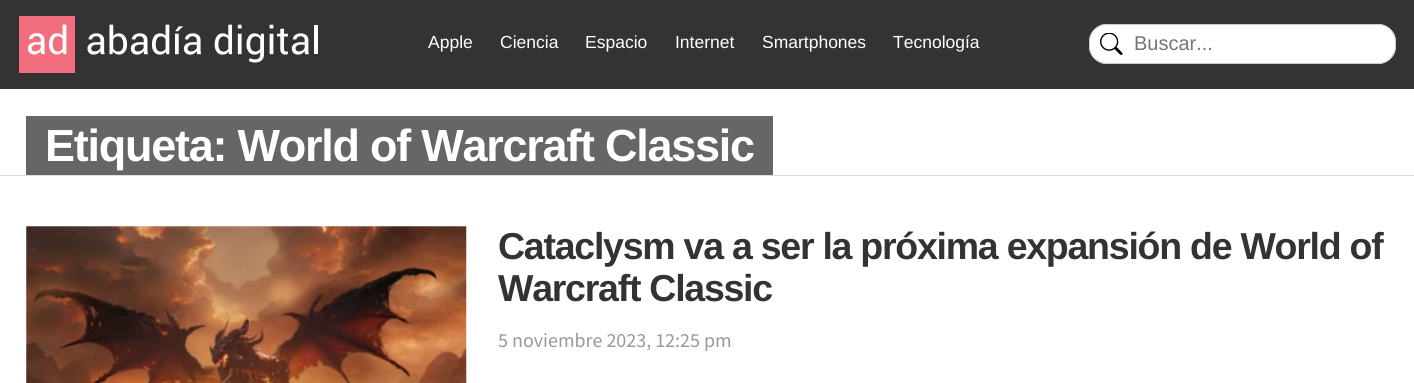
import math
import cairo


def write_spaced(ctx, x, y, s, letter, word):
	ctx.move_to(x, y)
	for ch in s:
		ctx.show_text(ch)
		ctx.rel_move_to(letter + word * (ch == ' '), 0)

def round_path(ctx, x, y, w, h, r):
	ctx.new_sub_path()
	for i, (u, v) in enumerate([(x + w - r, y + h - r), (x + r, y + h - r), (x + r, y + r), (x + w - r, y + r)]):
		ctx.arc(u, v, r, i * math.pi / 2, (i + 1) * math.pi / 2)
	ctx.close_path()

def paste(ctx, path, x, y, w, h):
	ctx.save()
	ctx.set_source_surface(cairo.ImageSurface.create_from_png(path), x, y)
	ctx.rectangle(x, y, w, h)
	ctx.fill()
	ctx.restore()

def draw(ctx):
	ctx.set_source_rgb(1, 1, 1)
	ctx.paint()
	ctx.set_source_rgb(0.2, 0.2, 0.2)
	ctx.rectangle(0, 0, 1414, 89)
	ctx.fill()
	paste(ctx, 'media/1.png', 19, 16, 299, 57)
	ctx.select_font_face('Liberation Sans')
	ctx.set_font_size(17.5)
	ctx.set_source_rgb(1, 1, 1)
	for x, y, s in [
		(428, 48, 'Apple'),
		(500, 48, 'Ciencia'),
		(585, 48, 'Espacio'),
		(675, 48, 'Internet'),
		(762, 48, 'Smartphones'),
		(893, 48, 'Tecnología'),
	]:
		ctx.move_to(x, y)
		ctx.show_text(s)
	round_path(ctx, 1089, 24, 307, 40, 18)
	ctx.fill()
	paste(ctx, 'media/2.png', 1100, 33, 23, 22)
	round_path(ctx, 1089.5, 24.5, 306, 39, 17.5)
	ctx.set_source_rgb(0.8, 0.8, 0.8)
	ctx.set_line_width(1)
	ctx.stroke()
	ctx.set_font_size(20)
	ctx.set_source_rgb(0.459, 0.459, 0.459)
	ctx.move_to(1134, 50)
	ctx.show_text('Buscar...')
	ctx.set_source_rgb(0.4, 0.4, 0.4)
	ctx.rectangle(26, 116, 747, 59)
	ctx.fill()
	ctx.select_font_face('Liberation Sans', cairo.FONT_SLANT_NORMAL, cairo.FONT_WEIGHT_BOLD)
	ctx.set_font_size(45)
	ctx.set_source_rgb(1, 1, 1)
	write_spaced(ctx, 45, 161, 'Etiqueta: World of Warcraft Classic', -1.25, 0)
	ctx.set_source_rgb(0.867, 0.867, 0.867)
	ctx.rectangle(0, 175, 1414, 1)
	ctx.fill()
	paste(ctx, 'media/3.png', 26, 226, 441, 157)
	ctx.set_font_size(37.5)
	ctx.set_source_rgb(0.2, 0.2, 0.2)
	write_spaced(ctx, 498, 259, 'Cataclysm va a ser la próxima expansión de World of', -1.25, 0)
	write_spaced(ctx, 498, 301, 'Warcraft Classic', -1.25, 0)
	ctx.select_font_face('Source Sans Pro')
	ctx.set_font_size(20)
	ctx.set_source_rgb(0.6, 0.6, 0.6)
	ctx.move_to(498, 347)
	ctx.show_text('5 noviembre 2023, 12:25 pm')


surface = cairo.ImageSurface(cairo.FORMAT_RGB24, 1414, 383)
ctx = cairo.Context(surface)
options = cairo.FontOptions()
options.set_hint_metrics(cairo.HINT_METRICS_OFF)
options.set_hint_style(cairo.HINT_STYLE_NONE)
ctx.set_font_options(options)
ctx.set_miter_limit(4)
draw(ctx)
surface.write_to_png('image.png')
